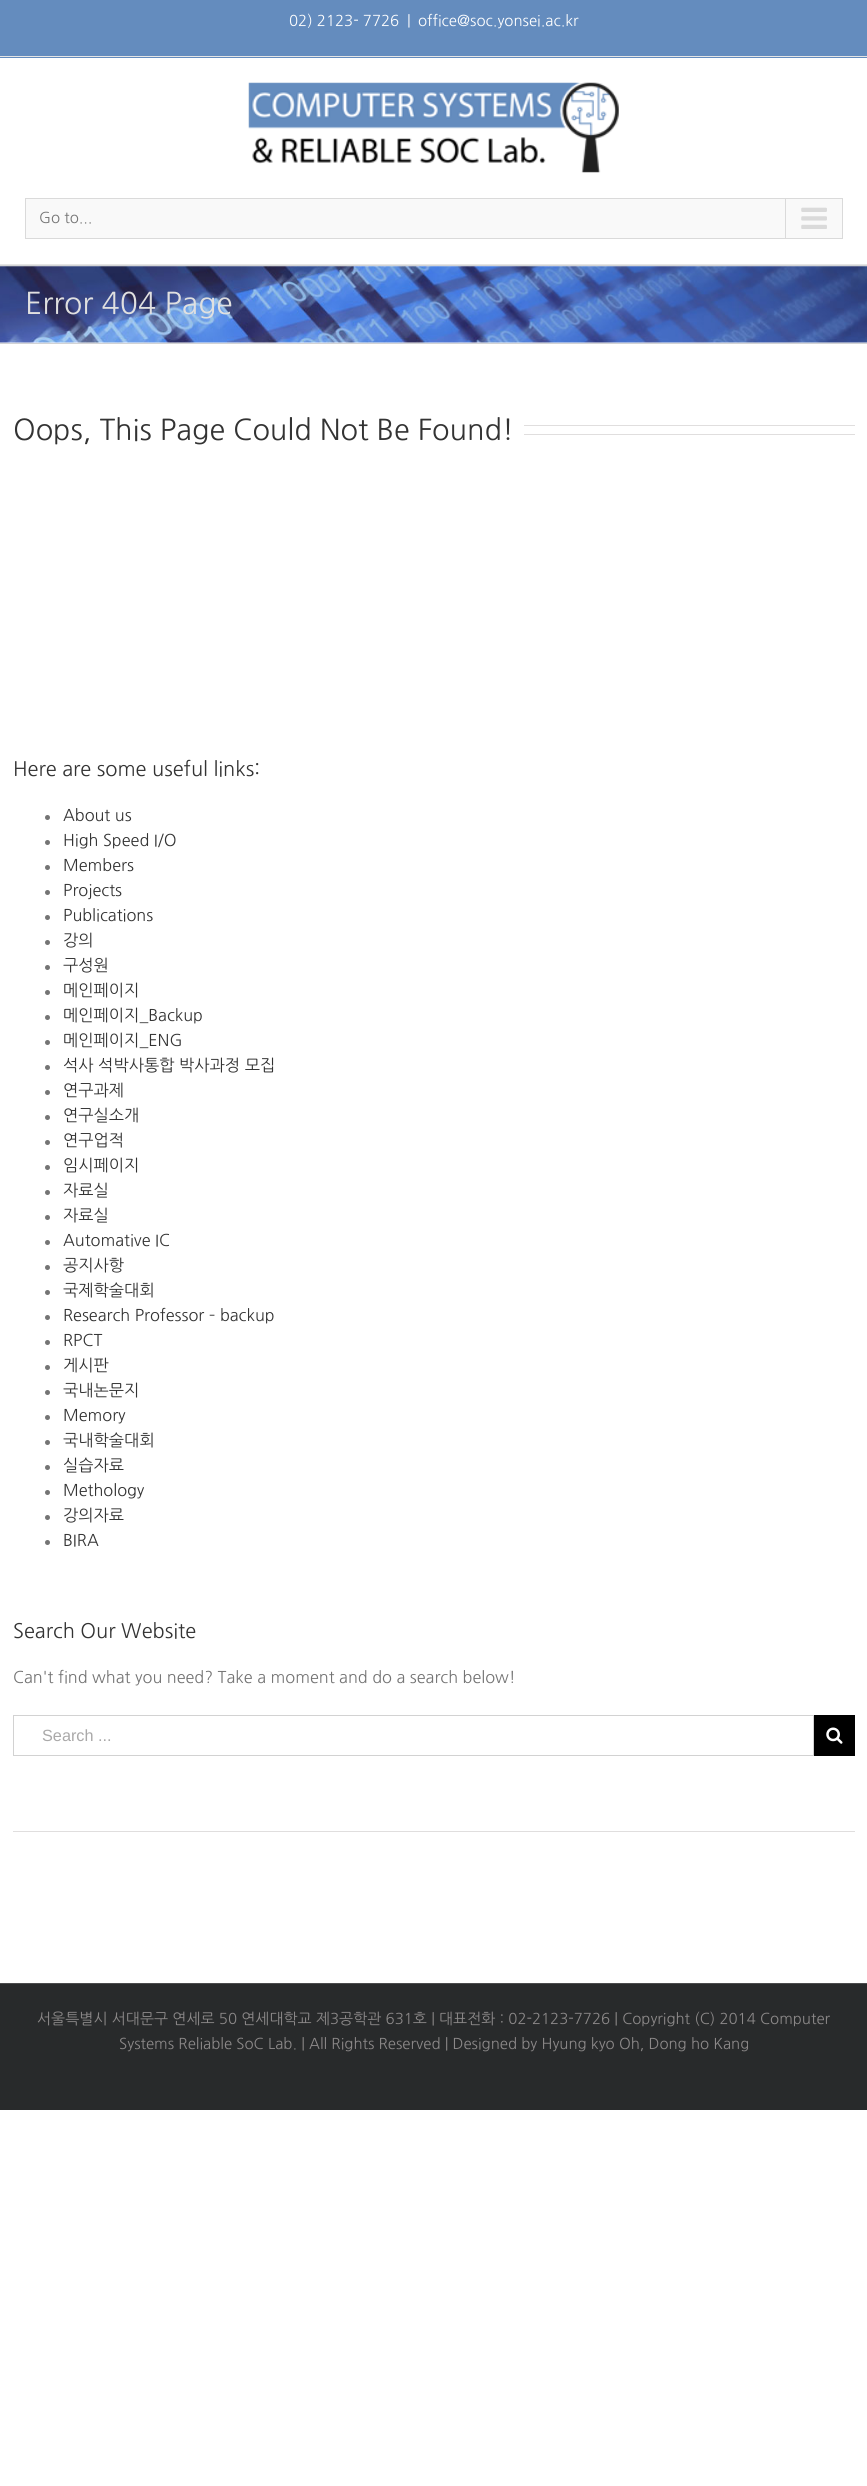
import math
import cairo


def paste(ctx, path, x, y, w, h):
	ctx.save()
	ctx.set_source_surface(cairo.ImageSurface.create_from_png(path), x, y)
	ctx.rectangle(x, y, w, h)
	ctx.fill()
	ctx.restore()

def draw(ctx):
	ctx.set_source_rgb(1, 1, 1)
	ctx.paint()
	ctx.set_source_rgb(0.392, 0.549, 0.745)
	ctx.rectangle(0, 0, 867, 58)
	ctx.fill()
	ctx.set_source_rgb(0.898, 0.898, 0.898)
	ctx.rectangle(0, 56, 867, 1)
	ctx.fill()
	ctx.select_font_face('NanumGothic')
	ctx.set_font_size(15)
	ctx.set_source_rgb(1, 1, 1)
	for x, y, s in [
		(289, 26, '02) 2123- 7726'),
		(407, 26, '|'),
		(418, 26, 'office@soc.yonsei.ac.kr'),
	]:
		ctx.move_to(x, y)
		ctx.show_text(s)
	ctx.set_source_rgb(0.898, 0.898, 0.898)
	ctx.rectangle(0, 264, 867, 1)
	ctx.fill()
	paste(ctx, 'media/1.png', 248, 82, 371, 91)
	ctx.set_source_rgb(0.976, 0.976, 0.976)
	ctx.rectangle(25.5, 198.5, 817, 40)
	ctx.fill_preserve()
	ctx.set_source_rgb(0.855, 0.855, 0.855)
	ctx.set_line_width(1)
	ctx.stroke()
	ctx.set_source_rgb(0.455, 0.455, 0.455)
	ctx.move_to(39, 223)
	ctx.show_text('Go to...')
	ctx.set_source_rgb(0.855, 0.855, 0.855)
	ctx.rectangle(785, 199, 1, 39)
	ctx.fill()
	paste(ctx, 'media/2.png', 801, 207, 26, 22)
	ctx.set_source_rgb(0.965, 0.965, 0.965)
	ctx.rectangle(0, 266, 867, 77)
	ctx.fill()
	paste(ctx, 'media/3.png', 0, 266, 867, 77)
	ctx.set_source_rgb(0.824, 0.827, 0.831)
	ctx.rectangle(0, 265, 867, 1)
	ctx.fill()
	ctx.rectangle(0, 343, 867, 1)
	ctx.fill()
	ctx.set_font_size(30)
	ctx.set_source_rgb(0.878, 0.878, 0.878)
	ctx.move_to(25, 314)
	ctx.show_text('Error 404 Page')
	ctx.set_font_size(28.75)
	ctx.set_source_rgb(0.2, 0.2, 0.2)
	ctx.move_to(13, 440)
	ctx.show_text('Oops, This Page Could Not Be Found!')
	ctx.set_source_rgb(0.878, 0.871, 0.871)
	ctx.rectangle(524, 425, 331, 1)
	ctx.fill()
	ctx.rectangle(524, 434, 331, 1)
	ctx.fill()
	ctx.set_font_size(20)
	ctx.set_source_rgb(0.2, 0.2, 0.2)
	ctx.move_to(13, 776)
	ctx.show_text('Here are some useful links:')
	ctx.set_source_rgb(0.455, 0.455, 0.455)
	ctx.new_path()
	ctx.arc(47.5, 817.5, 2.5, 0, 2 * math.pi)
	ctx.fill()
	ctx.set_font_size(16.25)
	ctx.set_source_rgb(0.2, 0.2, 0.2)
	ctx.move_to(63, 821)
	ctx.show_text('About us')
	ctx.set_source_rgb(0.455, 0.455, 0.455)
	ctx.new_path()
	ctx.arc(47.5, 842.5, 2.5, 0, 2 * math.pi)
	ctx.fill()
	ctx.set_source_rgb(0.2, 0.2, 0.2)
	ctx.move_to(63, 846)
	ctx.show_text('High Speed I/O')
	ctx.set_source_rgb(0.455, 0.455, 0.455)
	ctx.new_path()
	ctx.arc(47.5, 867.5, 2.5, 0, 2 * math.pi)
	ctx.fill()
	ctx.set_source_rgb(0.2, 0.2, 0.2)
	ctx.move_to(63, 871)
	ctx.show_text('Members')
	ctx.set_source_rgb(0.455, 0.455, 0.455)
	ctx.new_path()
	ctx.arc(47.5, 892.5, 2.5, 0, 2 * math.pi)
	ctx.fill()
	ctx.set_source_rgb(0.2, 0.2, 0.2)
	ctx.move_to(63, 896)
	ctx.show_text('Projects')
	ctx.set_source_rgb(0.455, 0.455, 0.455)
	ctx.new_path()
	ctx.arc(47.5, 917.5, 2.5, 0, 2 * math.pi)
	ctx.fill()
	ctx.set_source_rgb(0.2, 0.2, 0.2)
	ctx.move_to(63, 921)
	ctx.show_text('Publications')
	ctx.set_source_rgb(0.455, 0.455, 0.455)
	ctx.new_path()
	ctx.arc(47.5, 942.5, 2.5, 0, 2 * math.pi)
	ctx.fill()
	ctx.set_source_rgb(0.2, 0.2, 0.2)
	ctx.move_to(63, 946)
	ctx.show_text('강의')
	ctx.set_source_rgb(0.455, 0.455, 0.455)
	ctx.new_path()
	ctx.arc(47.5, 967.5, 2.5, 0, 2 * math.pi)
	ctx.fill()
	ctx.set_source_rgb(0.2, 0.2, 0.2)
	ctx.move_to(63, 971)
	ctx.show_text('구성원')
	ctx.set_source_rgb(0.455, 0.455, 0.455)
	ctx.new_path()
	ctx.arc(47.5, 992.5, 2.5, 0, 2 * math.pi)
	ctx.fill()
	ctx.set_source_rgb(0.2, 0.2, 0.2)
	ctx.move_to(63, 996)
	ctx.show_text('메인페이지')
	ctx.set_source_rgb(0.455, 0.455, 0.455)
	ctx.new_path()
	ctx.arc(47.5, 1017.5, 2.5, 0, 2 * math.pi)
	ctx.fill()
	ctx.set_source_rgb(0.2, 0.2, 0.2)
	ctx.move_to(63, 1021)
	ctx.show_text('메인페이지_Backup')
	ctx.set_source_rgb(0.455, 0.455, 0.455)
	ctx.new_path()
	ctx.arc(47.5, 1042.5, 2.5, 0, 2 * math.pi)
	ctx.fill()
	ctx.set_source_rgb(0.2, 0.2, 0.2)
	ctx.move_to(63, 1046)
	ctx.show_text('메인페이지_ENG')
	ctx.set_source_rgb(0.455, 0.455, 0.455)
	ctx.new_path()
	ctx.arc(47.5, 1067.5, 2.5, 0, 2 * math.pi)
	ctx.fill()
	ctx.set_source_rgb(0.2, 0.2, 0.2)
	ctx.move_to(63, 1071)
	ctx.show_text('석사 석박사통합 박사과정 모집')
	ctx.set_source_rgb(0.455, 0.455, 0.455)
	ctx.new_path()
	ctx.arc(47.5, 1092.5, 2.5, 0, 2 * math.pi)
	ctx.fill()
	ctx.set_source_rgb(0.2, 0.2, 0.2)
	ctx.move_to(63, 1096)
	ctx.show_text('연구과제')
	ctx.set_source_rgb(0.455, 0.455, 0.455)
	ctx.new_path()
	ctx.arc(47.5, 1117.5, 2.5, 0, 2 * math.pi)
	ctx.fill()
	ctx.set_source_rgb(0.2, 0.2, 0.2)
	ctx.move_to(63, 1121)
	ctx.show_text('연구실소개')
	ctx.set_source_rgb(0.455, 0.455, 0.455)
	ctx.new_path()
	ctx.arc(47.5, 1142.5, 2.5, 0, 2 * math.pi)
	ctx.fill()
	ctx.set_source_rgb(0.2, 0.2, 0.2)
	ctx.move_to(63, 1146)
	ctx.show_text('연구업적')
	ctx.set_source_rgb(0.455, 0.455, 0.455)
	ctx.new_path()
	ctx.arc(47.5, 1167.5, 2.5, 0, 2 * math.pi)
	ctx.fill()
	ctx.set_source_rgb(0.2, 0.2, 0.2)
	ctx.move_to(63, 1171)
	ctx.show_text('임시페이지')
	ctx.set_source_rgb(0.455, 0.455, 0.455)
	ctx.new_path()
	ctx.arc(47.5, 1192.5, 2.5, 0, 2 * math.pi)
	ctx.fill()
	ctx.set_source_rgb(0.2, 0.2, 0.2)
	ctx.move_to(63, 1196)
	ctx.show_text('자료실')
	ctx.set_source_rgb(0.455, 0.455, 0.455)
	ctx.new_path()
	ctx.arc(47.5, 1217.5, 2.5, 0, 2 * math.pi)
	ctx.fill()
	ctx.set_source_rgb(0.2, 0.2, 0.2)
	ctx.move_to(63, 1221)
	ctx.show_text('자료실')
	ctx.set_source_rgb(0.455, 0.455, 0.455)
	ctx.new_path()
	ctx.arc(47.5, 1242.5, 2.5, 0, 2 * math.pi)
	ctx.fill()
	ctx.set_source_rgb(0.2, 0.2, 0.2)
	ctx.move_to(63, 1246)
	ctx.show_text('Automative IC')
	ctx.set_source_rgb(0.455, 0.455, 0.455)
	ctx.new_path()
	ctx.arc(47.5, 1267.5, 2.5, 0, 2 * math.pi)
	ctx.fill()
	ctx.set_source_rgb(0.2, 0.2, 0.2)
	ctx.move_to(63, 1271)
	ctx.show_text('공지사항')
	ctx.set_source_rgb(0.455, 0.455, 0.455)
	ctx.new_path()
	ctx.arc(47.5, 1292.5, 2.5, 0, 2 * math.pi)
	ctx.fill()
	ctx.set_source_rgb(0.2, 0.2, 0.2)
	ctx.move_to(63, 1296)
	ctx.show_text('국제학술대회')
	ctx.set_source_rgb(0.455, 0.455, 0.455)
	ctx.new_path()
	ctx.arc(47.5, 1317.5, 2.5, 0, 2 * math.pi)
	ctx.fill()
	ctx.set_source_rgb(0.2, 0.2, 0.2)
	ctx.move_to(63, 1321)
	ctx.show_text('Research Professor – backup')
	ctx.set_source_rgb(0.455, 0.455, 0.455)
	ctx.new_path()
	ctx.arc(47.5, 1342.5, 2.5, 0, 2 * math.pi)
	ctx.fill()
	ctx.set_source_rgb(0.2, 0.2, 0.2)
	ctx.move_to(63, 1346)
	ctx.show_text('RPCT')
	ctx.set_source_rgb(0.455, 0.455, 0.455)
	ctx.new_path()
	ctx.arc(47.5, 1367.5, 2.5, 0, 2 * math.pi)
	ctx.fill()
	ctx.set_source_rgb(0.2, 0.2, 0.2)
	ctx.move_to(63, 1371)
	ctx.show_text('게시판')
	ctx.set_source_rgb(0.455, 0.455, 0.455)
	ctx.new_path()
	ctx.arc(47.5, 1392.5, 2.5, 0, 2 * math.pi)
	ctx.fill()
	ctx.set_source_rgb(0.2, 0.2, 0.2)
	ctx.move_to(63, 1396)
	ctx.show_text('국내논문지')
	ctx.set_source_rgb(0.455, 0.455, 0.455)
	ctx.new_path()
	ctx.arc(47.5, 1417.5, 2.5, 0, 2 * math.pi)
	ctx.fill()
	ctx.set_source_rgb(0.2, 0.2, 0.2)
	ctx.move_to(63, 1421)
	ctx.show_text('Memory')
	ctx.set_source_rgb(0.455, 0.455, 0.455)
	ctx.new_path()
	ctx.arc(47.5, 1442.5, 2.5, 0, 2 * math.pi)
	ctx.fill()
	ctx.set_source_rgb(0.2, 0.2, 0.2)
	ctx.move_to(63, 1446)
	ctx.show_text('국내학술대회')
	ctx.set_source_rgb(0.455, 0.455, 0.455)
	ctx.new_path()
	ctx.arc(47.5, 1467.5, 2.5, 0, 2 * math.pi)
	ctx.fill()
	ctx.set_source_rgb(0.2, 0.2, 0.2)
	ctx.move_to(63, 1471)
	ctx.show_text('실습자료')
	ctx.set_source_rgb(0.455, 0.455, 0.455)
	ctx.new_path()
	ctx.arc(47.5, 1492.5, 2.5, 0, 2 * math.pi)
	ctx.fill()
	ctx.set_source_rgb(0.2, 0.2, 0.2)
	ctx.move_to(63, 1496)
	ctx.show_text('Methology')
	ctx.set_source_rgb(0.455, 0.455, 0.455)
	ctx.new_path()
	ctx.arc(47.5, 1517.5, 2.5, 0, 2 * math.pi)
	ctx.fill()
	ctx.set_source_rgb(0.2, 0.2, 0.2)
	ctx.move_to(63, 1521)
	ctx.show_text('강의자료')
	ctx.set_source_rgb(0.455, 0.455, 0.455)
	ctx.new_path()
	ctx.arc(47.5, 1542.5, 2.5, 0, 2 * math.pi)
	ctx.fill()
	ctx.set_source_rgb(0.2, 0.2, 0.2)
	ctx.move_to(63, 1546)
	ctx.show_text('BIRA')
	ctx.set_font_size(20)
	ctx.move_to(13, 1638)
	ctx.show_text('Search Our Website')
	ctx.set_font_size(16.25)
	ctx.set_source_rgb(0.455, 0.455, 0.455)
	ctx.move_to(13, 1683)
	ctx.show_text('Can\'t find what you need? Take a moment and do a search below!')
	ctx.set_source_rgb(0.878, 0.871, 0.871)
	ctx.rectangle(13, 1831, 842, 1)
	ctx.fill()
	ctx.rectangle(13.5, 1715.5, 800, 40)
	ctx.set_source_rgb(0.824, 0.824, 0.824)
	ctx.stroke()
	ctx.select_font_face('Liberation Sans')
	ctx.set_source_rgb(0.667, 0.663, 0.663)
	ctx.move_to(42, 1741)
	ctx.show_text('Search ...')
	ctx.set_source_rgb(0, 0, 0)
	ctx.rectangle(814, 1715, 41, 41)
	ctx.fill()
	paste(ctx, 'media/4.png', 826, 1727, 17, 17)
	ctx.set_source_rgb(0.157, 0.165, 0.169)
	ctx.rectangle(0, 1984, 867, 126)
	ctx.fill()
	ctx.set_source_rgb(0.294, 0.298, 0.302)
	ctx.rectangle(0, 1983, 867, 1)
	ctx.fill()
	ctx.select_font_face('NanumGothic')
	ctx.set_font_size(15)
	ctx.set_source_rgb(0.549, 0.537, 0.537)
	ctx.move_to(37, 2024)
	ctx.show_text('서울특별시 서대문구 연세로 50 연세대학교 제3공학관 631호 | 대표전화 : 02-2123-7726 | Copyright (C) 2014 Computer')
	ctx.move_to(119, 2049)
	ctx.show_text('Systems Reliable SoC Lab. | All Rights Reserved | Designed by Hyung kyo Oh, Dong ho Kang')


surface = cairo.ImageSurface(cairo.FORMAT_RGB24, 867, 2486)
ctx = cairo.Context(surface)
options = cairo.FontOptions()
options.set_hint_metrics(cairo.HINT_METRICS_OFF)
options.set_hint_style(cairo.HINT_STYLE_NONE)
ctx.set_font_options(options)
ctx.set_miter_limit(4)
draw(ctx)
surface.write_to_png('image.png')
